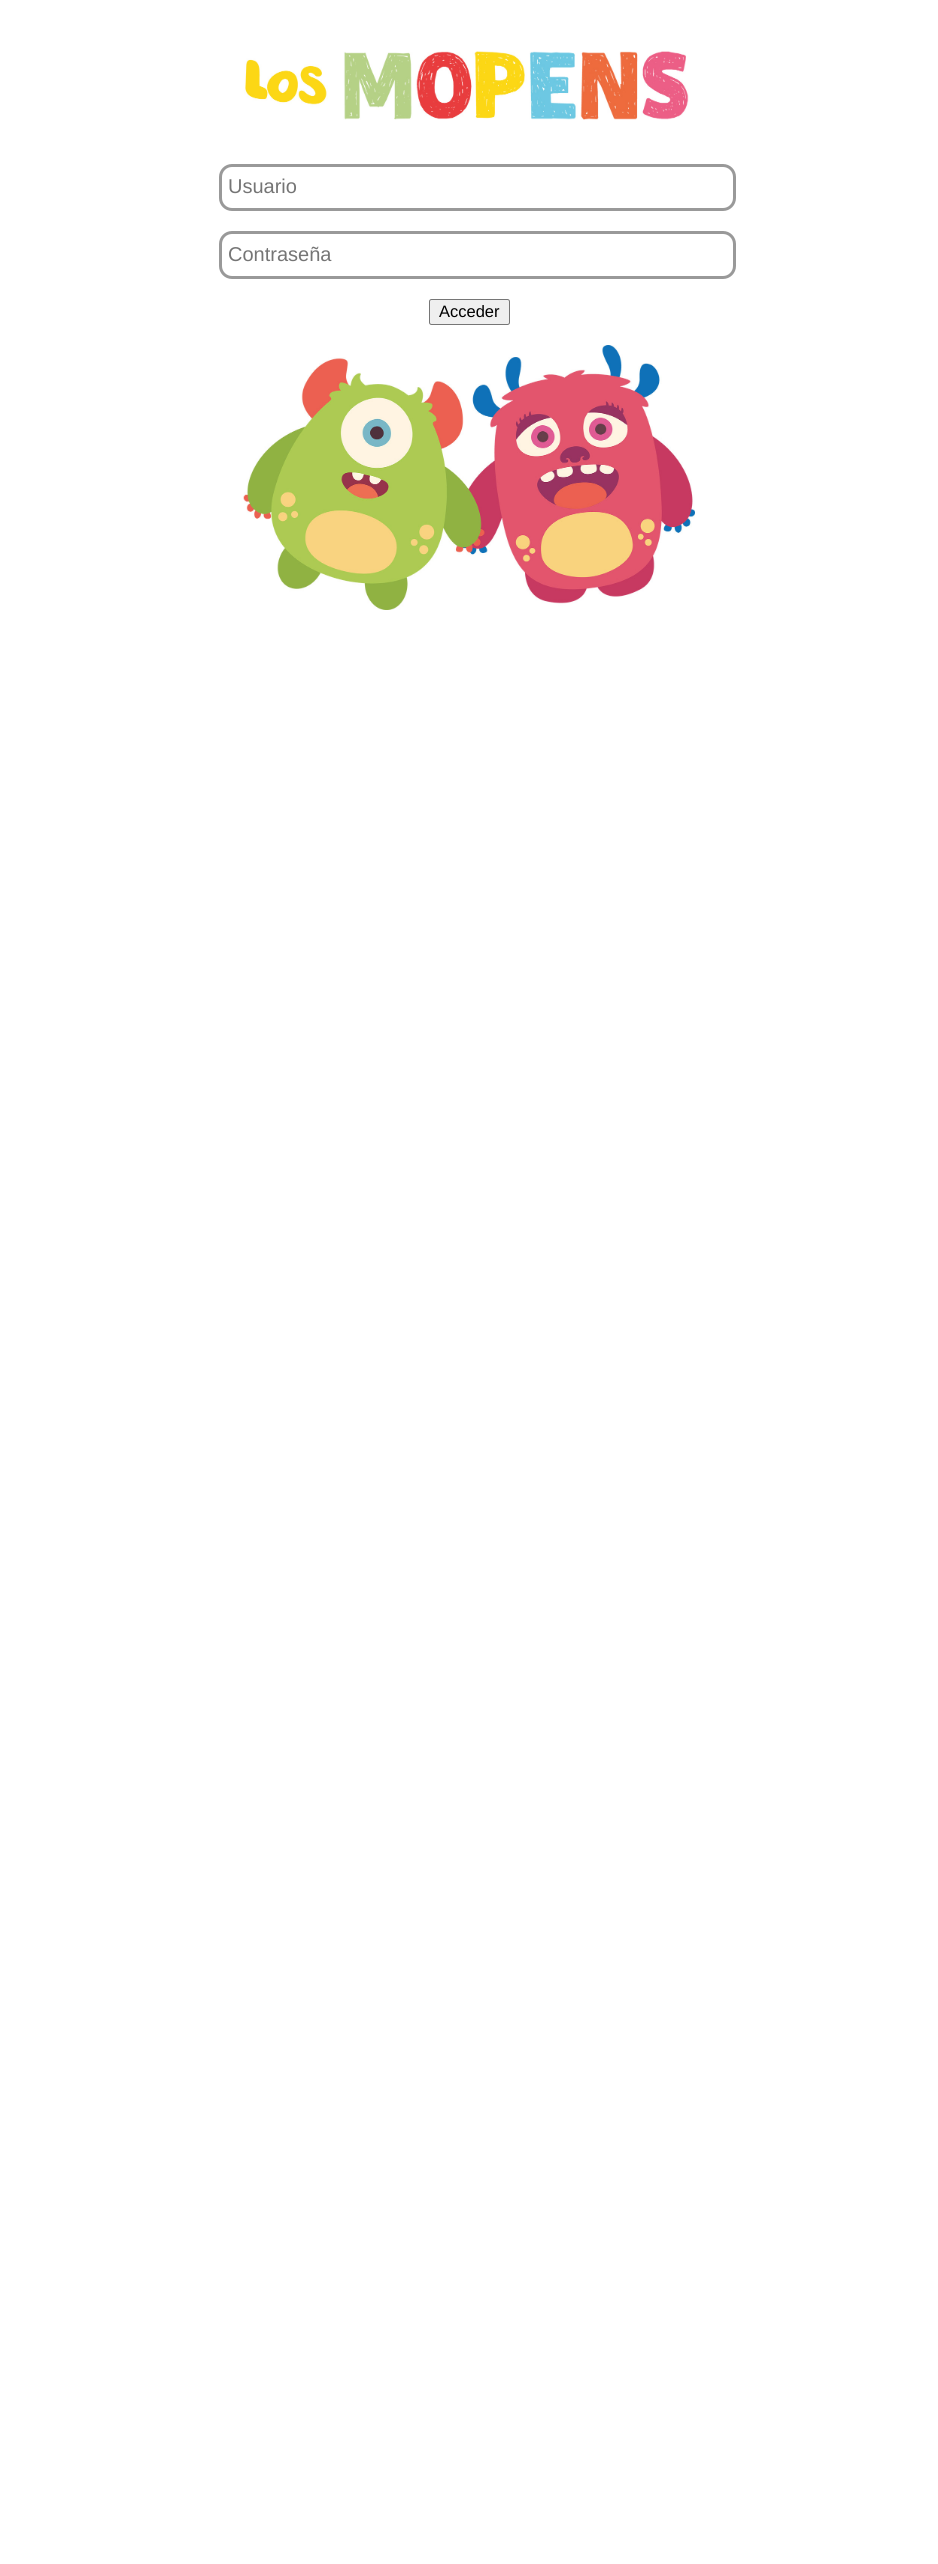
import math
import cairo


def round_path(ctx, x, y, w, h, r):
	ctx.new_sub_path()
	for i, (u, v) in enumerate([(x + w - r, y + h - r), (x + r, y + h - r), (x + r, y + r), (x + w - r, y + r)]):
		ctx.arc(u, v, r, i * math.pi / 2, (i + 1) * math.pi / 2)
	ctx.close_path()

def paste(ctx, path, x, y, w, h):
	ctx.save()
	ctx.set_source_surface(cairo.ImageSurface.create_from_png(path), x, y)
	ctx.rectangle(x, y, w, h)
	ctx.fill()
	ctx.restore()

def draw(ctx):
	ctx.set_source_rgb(1, 1, 1)
	ctx.paint()
	paste(ctx, 'media/1.png', 244, 51, 445, 69)
	round_path(ctx, 220.5, 165.5, 514, 44, 11.5)
	ctx.set_source_rgb(0.6, 0.6, 0.6)
	ctx.set_line_width(3)
	ctx.stroke()
	ctx.select_font_face('Liberation Sans')
	ctx.set_font_size(20)
	ctx.set_source_rgb(0.459, 0.459, 0.459)
	ctx.move_to(228, 193)
	ctx.show_text('Usuario')
	round_path(ctx, 220.5, 232.5, 514, 45, 11.5)
	ctx.set_source_rgb(0.6, 0.6, 0.6)
	ctx.stroke()
	ctx.set_source_rgb(0.459, 0.459, 0.459)
	ctx.move_to(228, 261)
	ctx.show_text('Contraseña')
	ctx.set_source_rgb(0.937, 0.937, 0.937)
	round_path(ctx, 429.5, 299.5, 80, 25, 2)
	ctx.fill_preserve()
	ctx.set_source_rgb(0.463, 0.463, 0.463)
	ctx.set_line_width(1)
	ctx.stroke()
	ctx.set_font_size(16.5)
	ctx.set_source_rgb(0, 0, 0)
	ctx.move_to(439, 317)
	ctx.show_text('Acceder')
	paste(ctx, 'media/2.png', 243, 345, 452, 265)


surface = cairo.ImageSurface(cairo.FORMAT_RGB24, 938, 2564)
ctx = cairo.Context(surface)
options = cairo.FontOptions()
options.set_hint_metrics(cairo.HINT_METRICS_OFF)
options.set_hint_style(cairo.HINT_STYLE_NONE)
ctx.set_font_options(options)
ctx.set_miter_limit(4)
draw(ctx)
surface.write_to_png('image.png')
